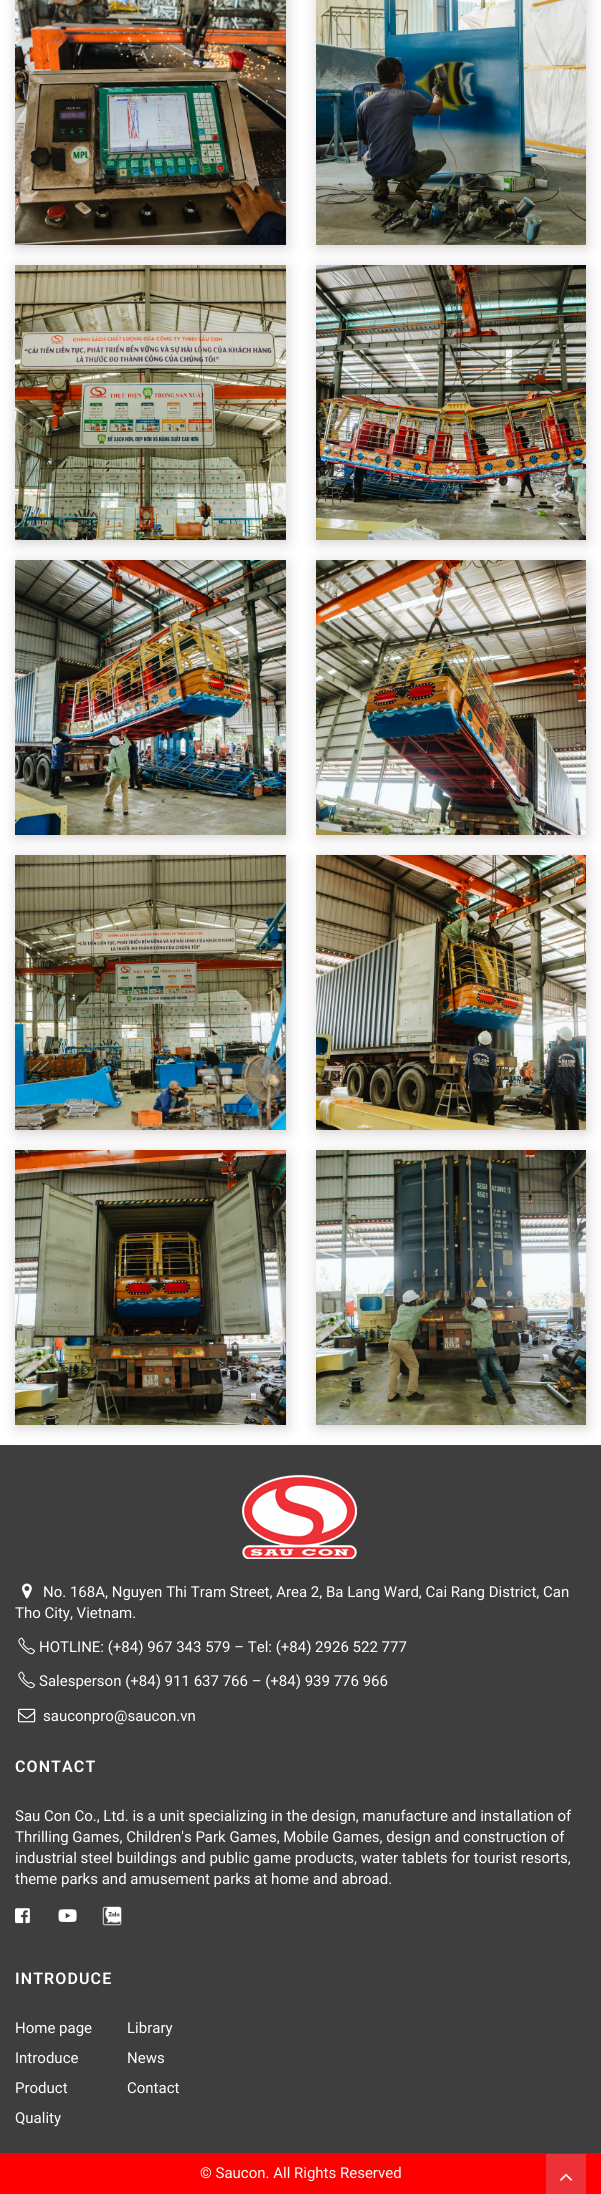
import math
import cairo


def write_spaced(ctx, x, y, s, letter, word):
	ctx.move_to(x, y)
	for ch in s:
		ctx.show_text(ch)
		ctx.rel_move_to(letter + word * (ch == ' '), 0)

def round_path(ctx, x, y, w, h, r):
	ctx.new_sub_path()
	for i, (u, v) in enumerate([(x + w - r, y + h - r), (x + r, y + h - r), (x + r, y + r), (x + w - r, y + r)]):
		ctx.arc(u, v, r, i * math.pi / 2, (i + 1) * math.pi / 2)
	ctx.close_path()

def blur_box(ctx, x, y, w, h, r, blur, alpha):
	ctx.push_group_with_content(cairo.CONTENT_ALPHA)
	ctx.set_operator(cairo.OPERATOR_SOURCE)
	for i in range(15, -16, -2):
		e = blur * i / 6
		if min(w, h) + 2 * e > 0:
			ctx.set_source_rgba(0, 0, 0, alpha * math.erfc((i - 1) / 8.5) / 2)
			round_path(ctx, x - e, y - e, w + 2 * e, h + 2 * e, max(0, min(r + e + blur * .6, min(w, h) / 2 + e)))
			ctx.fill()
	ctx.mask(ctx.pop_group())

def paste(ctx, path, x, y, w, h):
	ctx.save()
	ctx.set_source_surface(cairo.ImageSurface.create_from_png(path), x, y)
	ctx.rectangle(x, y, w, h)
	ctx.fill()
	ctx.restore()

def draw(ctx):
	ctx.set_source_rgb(1, 1, 1)
	ctx.paint()
	ctx.set_source_rgb(0.753, 0.722, 0.722)
	blur_box(ctx, 17, -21, 269, 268, 0, 7, 0.75)
	paste(ctx, 'media/1.png', 15, 0, 271, 245)
	blur_box(ctx, 318, -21, 268, 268, 0, 7, 0.75)
	paste(ctx, 'media/2.png', 316, 0, 270, 245)
	blur_box(ctx, 17, 269, 269, 273, 0, 7, 0.75)
	paste(ctx, 'media/3.png', 15, 265, 271, 275)
	blur_box(ctx, 318, 269, 268, 273, 0, 7, 0.75)
	paste(ctx, 'media/4.png', 316, 265, 270, 275)
	blur_box(ctx, 17, 564, 269, 273, 0, 7, 0.75)
	paste(ctx, 'media/5.png', 15, 560, 271, 275)
	blur_box(ctx, 318, 564, 268, 273, 0, 7, 0.75)
	paste(ctx, 'media/6.png', 316, 560, 270, 275)
	blur_box(ctx, 17, 859, 269, 273, 0, 7, 0.75)
	paste(ctx, 'media/7.png', 15, 855, 271, 275)
	blur_box(ctx, 318, 859, 268, 273, 0, 7, 0.75)
	paste(ctx, 'media/8.png', 316, 855, 270, 275)
	ctx.set_source_rgb(0.243, 0.243, 0.243)
	ctx.rectangle(0, 1445, 601, 708)
	ctx.fill()
	ctx.set_source_rgb(0.753, 0.722, 0.722)
	blur_box(ctx, 17, 1154, 269, 273, 0, 7, 0.75)
	paste(ctx, 'media/9.png', 15, 1150, 271, 275)
	blur_box(ctx, 318, 1154, 268, 273, 0, 7, 0.75)
	paste(ctx, 'media/10.png', 316, 1150, 270, 275)
	paste(ctx, 'media/11.png', 242, 1475, 115, 84)
	paste(ctx, 'media/12.png', 22, 1583, 10, 16)
	ctx.select_font_face('Roboto')
	ctx.set_font_size(15)
	ctx.set_source_rgb(1, 1, 1)
	ctx.move_to(43, 1597)
	ctx.show_text('No. 168A, Nguyen Thi Tram Street, Area 2, Ba Lang Ward, Cai Rang District, Can')
	ctx.move_to(15, 1618)
	ctx.show_text('Tho City, Vietnam.')
	paste(ctx, 'media/13.png', 18, 1637, 17, 18)
	ctx.move_to(39, 1652)
	ctx.show_text('HOTLINE: (+84) 967 343 579 – Tel: (+84) 2926 522 777')
	paste(ctx, 'media/13.png', 18, 1671, 17, 18)
	ctx.move_to(39, 1686)
	ctx.show_text('Salesperson (+84) 911 637 766 – (+84) 939 776 966')
	paste(ctx, 'media/14.png', 18, 1708, 18, 15)
	ctx.move_to(43, 1721)
	ctx.show_text('sauconpro@saucon.vn')
	ctx.select_font_face('Roboto SemiBold')
	ctx.set_font_size(16)
	write_spaced(ctx, 15, 1772, 'CONTACT', 1.1, 0)
	ctx.select_font_face('Roboto')
	ctx.set_font_size(15)
	for x, y, s in [
		(15, 1821, 'Sau Con Co., Ltd. is a unit specializing in the design, manufacture and installation of'),
		(15, 1842, 'Thrilling Games, Children\'s Park Games, Mobile Games, design and construction of'),
		(15, 1863, 'industrial steel buildings and public game products, water tablets for tourist resorts,'),
		(15, 1884, 'theme parks and amusement parks at home and abroad.'),
	]:
		ctx.move_to(x, y)
		ctx.show_text(s)
	paste(ctx, 'media/15.png', 15, 1908, 15, 16)
	paste(ctx, 'media/16.png', 58, 1909, 19, 13)
	paste(ctx, 'media/17.png', 102, 1906, 20, 20)
	ctx.select_font_face('Roboto SemiBold')
	ctx.set_font_size(16)
	write_spaced(ctx, 15, 1984, 'INTRODUCE', 1.1, 0)
	ctx.select_font_face('Roboto')
	ctx.set_font_size(15)
	for x, y, s in [
		(15, 2033, 'Home page'),
		(15, 2063, 'Introduce'),
		(15, 2093, 'Product'),
		(15, 2123, 'Quality'),
		(127, 2033, 'Library'),
		(127, 2063, 'News'),
		(127, 2093, 'Contact'),
	]:
		ctx.move_to(x, y)
		ctx.show_text(s)
	ctx.set_source_rgb(0.996, 0, 0)
	ctx.rectangle(0, 2153, 601, 41)
	ctx.fill()
	ctx.set_source_rgb(1, 1, 1)
	ctx.move_to(200, 2178)
	ctx.show_text('© Saucon. All Rights Reserved')
	ctx.set_source_rgb(0.925, 0.196, 0.216)
	ctx.rectangle(546, 2154, 40, 40)
	ctx.fill()
	paste(ctx, 'media/18.png', 560, 2173, 13, 8)


surface = cairo.ImageSurface(cairo.FORMAT_RGB24, 601, 2194)
ctx = cairo.Context(surface)
options = cairo.FontOptions()
options.set_hint_metrics(cairo.HINT_METRICS_OFF)
options.set_hint_style(cairo.HINT_STYLE_NONE)
ctx.set_font_options(options)
ctx.set_miter_limit(4)
draw(ctx)
surface.write_to_png('image.png')
